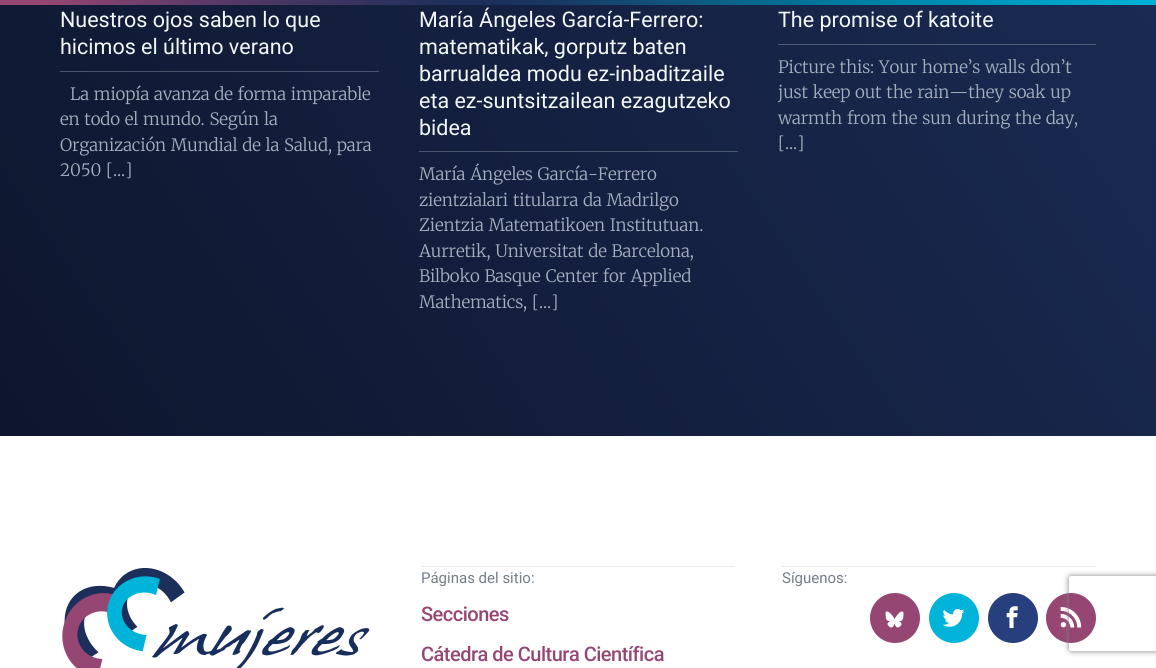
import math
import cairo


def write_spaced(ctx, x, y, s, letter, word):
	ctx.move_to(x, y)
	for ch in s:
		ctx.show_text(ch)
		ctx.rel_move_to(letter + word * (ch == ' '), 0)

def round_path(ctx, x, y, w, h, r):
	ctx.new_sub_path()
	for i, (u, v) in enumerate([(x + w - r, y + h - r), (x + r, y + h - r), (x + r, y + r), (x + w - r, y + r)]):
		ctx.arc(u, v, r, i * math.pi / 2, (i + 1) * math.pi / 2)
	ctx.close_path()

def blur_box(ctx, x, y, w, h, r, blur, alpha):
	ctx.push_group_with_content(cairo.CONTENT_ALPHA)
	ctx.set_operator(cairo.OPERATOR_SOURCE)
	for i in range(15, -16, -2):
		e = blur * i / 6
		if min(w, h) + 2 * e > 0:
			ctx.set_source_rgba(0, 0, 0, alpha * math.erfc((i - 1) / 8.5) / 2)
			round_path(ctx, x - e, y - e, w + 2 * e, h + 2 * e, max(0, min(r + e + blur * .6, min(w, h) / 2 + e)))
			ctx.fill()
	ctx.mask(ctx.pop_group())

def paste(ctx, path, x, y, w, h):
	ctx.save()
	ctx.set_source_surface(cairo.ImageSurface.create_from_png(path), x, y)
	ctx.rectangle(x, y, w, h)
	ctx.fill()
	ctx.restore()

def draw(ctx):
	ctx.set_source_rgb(1, 1, 1)
	ctx.paint()
	gradient = cairo.LinearGradient(180, 271, 977, -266)
	gradient.add_color_stop_rgba(0.04, 0.584, 0.275, 0.451, 1)
	gradient.add_color_stop_rgba(0.18, 0.353, 0.227, 0.404, 1)
	gradient.add_color_stop_rgba(0.4, 0.11, 0.18, 0.353, 1)
	gradient.add_color_stop_rgba(0.46, 0.102, 0.204, 0.376, 1)
	gradient.add_color_stop_rgba(0.56, 0.067, 0.31, 0.471, 1)
	gradient.add_color_stop_rgba(0.74, 0, 0.498, 0.639, 1)
	gradient.add_color_stop_rgba(1, 0, 0.702, 0.851, 1)
	ctx.set_source(gradient)
	ctx.rectangle(0, 0, 1156, 5)
	ctx.fill()
	gradient = cairo.LinearGradient(-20, 406, 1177, -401)
	gradient.add_color_stop_rgba(0, 0.055, 0.086, 0.176, 1)
	gradient.add_color_stop_rgba(1, 0.11, 0.18, 0.353, 1)
	ctx.set_source(gradient)
	ctx.rectangle(0, 5, 1156, 431)
	ctx.fill()
	gradient = cairo.LinearGradient(-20, 406, 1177, -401)
	gradient.add_color_stop_rgba(0, 0.278, 0.318, 0.392, 1)
	gradient.add_color_stop_rgba(1, 0.314, 0.373, 0.502, 1)
	ctx.set_source(gradient)
	ctx.rectangle(778, 44, 318, 1)
	ctx.fill()
	ctx.rectangle(419, 151, 319, 1)
	ctx.fill()
	ctx.rectangle(60, 71, 319, 1)
	ctx.fill()
	ctx.select_font_face('Roboto')
	ctx.set_font_size(21.5)
	ctx.set_source_rgb(0.957, 0.965, 0.973)
	ctx.move_to(60, 27)
	ctx.show_text('Nuestros ojos saben lo que')
	ctx.move_to(60, 54)
	ctx.show_text('hicimos el último verano')
	ctx.select_font_face('Merriweather Light')
	ctx.set_font_size(17)
	ctx.set_source_rgb(0.643, 0.69, 0.745)
	for x, y, s in [
		(70, 100, 'La miopía avanza de forma imparable'),
		(60, 125, 'en todo el mundo. Según la'),
		(60, 151, 'Organización Mundial de la Salud, para'),
		(60, 176, '2050 [...]'),
	]:
		write_spaced(ctx, x, y, s, -0.15, 1)
	ctx.select_font_face('Roboto')
	ctx.set_font_size(21.5)
	ctx.set_source_rgb(0.957, 0.965, 0.973)
	for x, y, s in [
		(419, 27, 'María Ángeles García-Ferrero:'),
		(419, 54, 'matematikak, gorputz baten'),
		(419, 81, 'barrualdea modu ez-inbaditzaile'),
		(419, 108, 'eta ez-suntsitzailean ezagutzeko'),
		(419, 135, 'bidea'),
	]:
		ctx.move_to(x, y)
		ctx.show_text(s)
	ctx.select_font_face('Merriweather Light')
	ctx.set_font_size(17)
	ctx.set_source_rgb(0.643, 0.69, 0.745)
	for x, y, s in [
		(419, 180, 'María Ángeles García-Ferrero'),
		(419, 206, 'zientzialari titularra da Madrilgo'),
		(419, 231, 'Zientzia Matematikoen Institutuan.'),
		(419, 257, 'Aurretik, Universitat de Barcelona,'),
		(419, 282, 'Bilboko Basque Center for Applied'),
		(419, 308, 'Mathematics, [...]'),
	]:
		write_spaced(ctx, x, y, s, -0.15, 1)
	ctx.select_font_face('Roboto')
	ctx.set_font_size(21.5)
	ctx.set_source_rgb(0.957, 0.965, 0.973)
	ctx.move_to(778, 27)
	ctx.show_text('The promise of katoite')
	ctx.select_font_face('Merriweather Light')
	ctx.set_font_size(17)
	ctx.set_source_rgb(0.643, 0.69, 0.745)
	for x, y, s in [
		(778, 73, 'Picture this: Your home’s walls don’t'),
		(778, 98, 'just keep out the rain—they soak up'),
		(778, 124, 'warmth from the sun during the day,'),
	]:
		write_spaced(ctx, x, y, s, -0.15, 1)
	write_spaced(ctx, 778, 149, '[...]', -0.15, 0)
	paste(ctx, 'media/1.png', 62, 568, 308, 100)
	ctx.set_source_rgb(0.906, 0.922, 0.941)
	ctx.rectangle(421, 566, 314, 1)
	ctx.fill()
	ctx.select_font_face('Roboto')
	ctx.set_font_size(15)
	ctx.set_source_rgb(0.455, 0.49, 0.549)
	ctx.move_to(421, 583)
	ctx.show_text('Páginas del sitio:')
	ctx.select_font_face('Roboto Medium')
	ctx.set_font_size(20)
	ctx.set_source_rgb(0.584, 0.275, 0.451)
	write_spaced(ctx, 421, 621, 'Secciones', -0.5, 0)
	write_spaced(ctx, 421, 661, 'Cátedra de Cultura Científica', -0.5, 0)
	ctx.set_source_rgb(0.906, 0.922, 0.941)
	ctx.rectangle(781, 566, 315, 1)
	ctx.fill()
	ctx.select_font_face('Roboto')
	ctx.set_font_size(15)
	ctx.set_source_rgb(0.455, 0.49, 0.549)
	ctx.move_to(782, 583)
	ctx.show_text('Síguenos:')
	ctx.set_source_rgb(0.584, 0.275, 0.451)
	ctx.new_path()
	ctx.arc(895, 618, 25, 0, 2 * math.pi)
	ctx.fill()
	paste(ctx, 'media/2.png', 885, 611, 19, 17)
	ctx.set_source_rgb(0, 0.702, 0.851)
	ctx.arc(954, 618, 25, 0, 2 * math.pi)
	ctx.fill()
	paste(ctx, 'media/3.png', 943, 609, 21, 18)
	ctx.set_source_rgb(0.153, 0.247, 0.49)
	ctx.arc(1013, 618, 25, 0, 2 * math.pi)
	ctx.fill()
	paste(ctx, 'media/4.png', 1006, 606, 12, 22)
	ctx.set_source_rgb(0.584, 0.275, 0.451)
	ctx.arc(1071, 618, 25, 0, 2 * math.pi)
	ctx.fill()
	paste(ctx, 'media/5.png', 1060, 606, 22, 22)
	ctx.save()
	ctx.set_fill_rule(cairo.FILL_RULE_EVEN_ODD)
	ctx.new_path()
	ctx.move_to(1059, 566)
	ctx.line_to(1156, 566)
	ctx.line_to(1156, 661)
	ctx.line_to(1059, 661)
	ctx.close_path()
	ctx.move_to(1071.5, 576)
	ctx.line_to(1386.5, 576)
	ctx.curve_to(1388, 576, 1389, 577, 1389, 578.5)
	ctx.line_to(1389, 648.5)
	ctx.curve_to(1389, 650, 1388, 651, 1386.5, 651)
	ctx.line_to(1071.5, 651)
	ctx.curve_to(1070, 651, 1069, 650, 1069, 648.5)
	ctx.line_to(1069, 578.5)
	ctx.curve_to(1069, 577, 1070, 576, 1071.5, 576)
	ctx.close_path()
	ctx.clip()
	ctx.set_source_rgb(0.502, 0.502, 0.502)
	blur_box(ctx, 1069, 576, 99, 75, 2.5, 3, 1)
	ctx.restore()


surface = cairo.ImageSurface(cairo.FORMAT_RGB24, 1156, 668)
ctx = cairo.Context(surface)
options = cairo.FontOptions()
options.set_hint_metrics(cairo.HINT_METRICS_OFF)
options.set_hint_style(cairo.HINT_STYLE_NONE)
ctx.set_font_options(options)
ctx.set_miter_limit(4)
draw(ctx)
surface.write_to_png('image.png')
